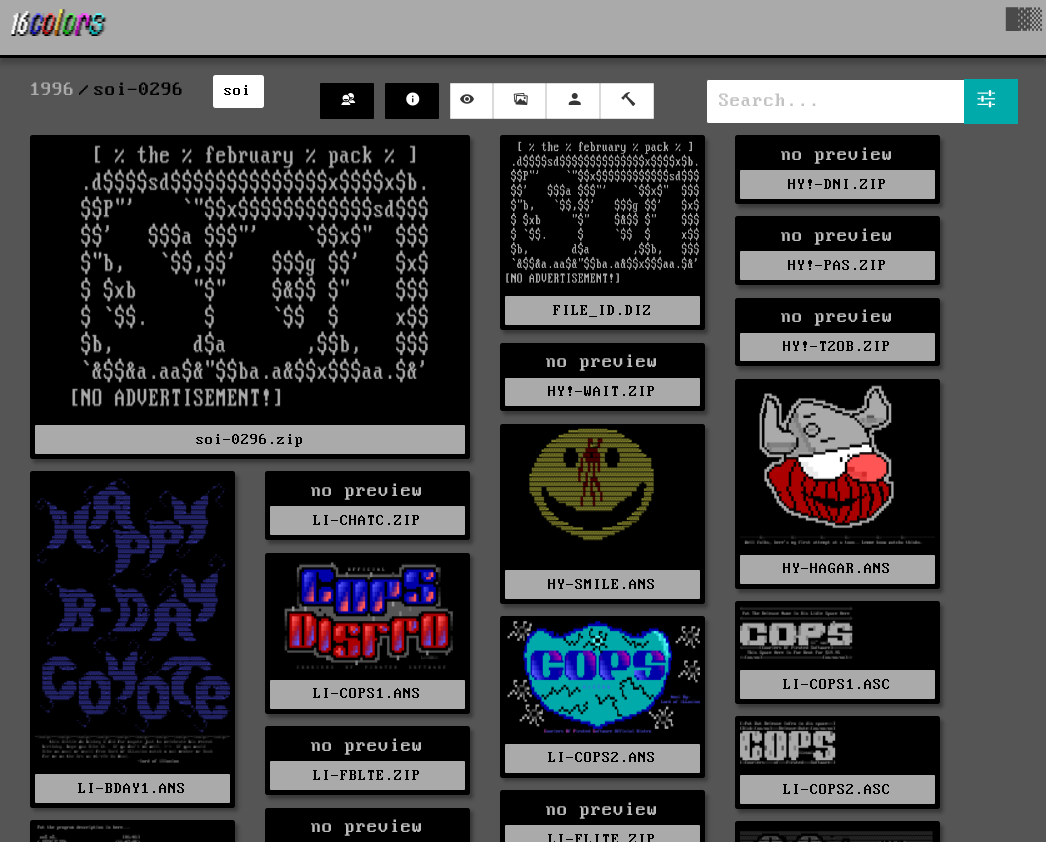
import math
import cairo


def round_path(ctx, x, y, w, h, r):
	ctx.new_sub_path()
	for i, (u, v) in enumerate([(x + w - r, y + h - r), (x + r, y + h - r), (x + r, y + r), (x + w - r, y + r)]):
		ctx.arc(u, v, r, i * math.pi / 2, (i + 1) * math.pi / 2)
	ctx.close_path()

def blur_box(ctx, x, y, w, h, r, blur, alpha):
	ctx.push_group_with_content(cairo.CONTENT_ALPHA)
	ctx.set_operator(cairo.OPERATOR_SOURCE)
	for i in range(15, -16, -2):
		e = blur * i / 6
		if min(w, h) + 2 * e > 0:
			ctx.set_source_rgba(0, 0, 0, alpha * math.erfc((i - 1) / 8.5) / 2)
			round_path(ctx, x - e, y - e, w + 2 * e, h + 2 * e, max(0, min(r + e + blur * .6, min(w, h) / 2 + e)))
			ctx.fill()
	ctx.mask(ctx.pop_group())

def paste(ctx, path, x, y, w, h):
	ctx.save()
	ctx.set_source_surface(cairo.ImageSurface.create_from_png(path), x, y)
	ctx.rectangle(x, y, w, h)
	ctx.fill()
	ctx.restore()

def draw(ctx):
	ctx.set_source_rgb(0.333, 0.333, 0.333)
	ctx.paint()
	ctx.set_source_rgb(0.133, 0.133, 0.133)
	blur_box(ctx, 0, 6, 1046, 58, 0, 3, 0.35)
	ctx.set_source_rgb(0.667, 0.667, 0.667)
	ctx.rectangle(0, 0, 1046, 55)
	ctx.fill()
	ctx.set_source_rgb(0, 0, 0)
	ctx.rectangle(0, 55, 1046, 3)
	ctx.fill()
	paste(ctx, 'media/1.png', 11, 9, 96, 27)
	ctx.select_font_face('DejaVu Sans Mono')
	ctx.set_font_size(20)
	ctx.set_source_rgb(0.29, 0.29, 0.29)
	ctx.move_to(1006, 26)
	ctx.show_text('█▓▒')
	ctx.select_font_face('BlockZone')
	ctx.set_source_rgb(0.667, 0.667, 0.667)
	ctx.move_to(30, 95)
	ctx.show_text('1996')
	ctx.set_source_rgb(0, 0, 0)
	ctx.move_to(79, 95)
	ctx.show_text('/')
	ctx.move_to(94, 95)
	ctx.show_text('soi-0296')
	ctx.set_source_rgb(1, 1, 1)
	round_path(ctx, 213, 75, 51, 33, 2.5)
	ctx.fill()
	ctx.set_font_size(16)
	ctx.set_source_rgb(0, 0, 0)
	ctx.move_to(224, 95)
	ctx.show_text('soi')
	round_path(ctx, 320, 83, 54, 36, 1)
	ctx.fill()
	paste(ctx, 'media/2.png', 341, 93, 15, 12)
	round_path(ctx, 385, 83, 54, 36, 1)
	ctx.fill()
	paste(ctx, 'media/3.png', 406, 92, 14, 14)
	ctx.set_source_rgb(1, 1, 1)
	round_path(ctx, 450.5, 83.5, 42, 35, 0.5)
	ctx.fill_preserve()
	ctx.set_source_rgb(0.859, 0.859, 0.859)
	ctx.set_line_width(1)
	ctx.stroke()
	paste(ctx, 'media/4.png', 460, 94, 14, 10)
	ctx.set_source_rgb(1, 1, 1)
	round_path(ctx, 493.5, 83.5, 52, 35, 0.5)
	ctx.fill_preserve()
	ctx.set_source_rgb(0.859, 0.859, 0.859)
	ctx.stroke()
	paste(ctx, 'media/5.png', 513, 93, 15, 12)
	ctx.set_source_rgb(1, 1, 1)
	round_path(ctx, 546.5, 83.5, 53, 35, 0.5)
	ctx.fill_preserve()
	ctx.set_source_rgb(0.859, 0.859, 0.859)
	ctx.stroke()
	paste(ctx, 'media/6.png', 568, 93, 13, 12)
	ctx.set_source_rgb(1, 1, 1)
	round_path(ctx, 600.5, 83.5, 53, 35, 0.5)
	ctx.fill_preserve()
	ctx.set_source_rgb(0.859, 0.859, 0.859)
	ctx.stroke()
	paste(ctx, 'media/7.png', 621, 92, 15, 14)
	ctx.set_source_rgb(1, 1, 1)
	ctx.new_path()
	ctx.move_to(708.5, 79.5)
	ctx.line_to(964.5, 79.5)
	ctx.line_to(964.5, 123.5)
	ctx.line_to(708.5, 123.5)
	ctx.curve_to(707.5, 123.5, 706.5, 122.5, 706.5, 121.5)
	ctx.line_to(706.5, 81.5)
	ctx.curve_to(706.5, 80.5, 707.5, 79.5, 708.5, 79.5)
	ctx.close_path()
	ctx.fill_preserve()
	ctx.set_source_rgb(0.333, 0.333, 0.333)
	ctx.stroke()
	ctx.save()
	ctx.rectangle(719, 91, 215, 20)
	ctx.clip()
	ctx.set_font_size(20)
	ctx.set_source_rgb(0.765, 0.765, 0.765)
	ctx.move_to(719, 106)
	ctx.show_text('Search...')
	ctx.restore()
	ctx.set_source_rgb(0, 0.667, 0.667)
	ctx.rectangle(964, 79, 54, 45)
	ctx.fill()
	paste(ctx, 'media/8.png', 977, 90, 18, 18)
	ctx.set_source_rgb(0.106, 0.106, 0.106)
	blur_box(ctx, 738, 139, 205, 69, 2.5, 2, 0.5)
	ctx.set_source_rgb(0, 0, 0)
	round_path(ctx, 735.5, 135.5, 204, 68, 2)
	ctx.fill_preserve()
	ctx.stroke()
	ctx.set_font_size(20)
	ctx.set_source_rgb(0.733, 0.733, 0.733)
	ctx.move_to(781, 160)
	ctx.show_text('no preview')
	ctx.set_source_rgb(0.667, 0.667, 0.667)
	round_path(ctx, 740, 170, 195, 29, 1)
	ctx.fill()
	ctx.set_font_size(16)
	ctx.set_source_rgb(0, 0, 0)
	ctx.move_to(788, 189)
	ctx.show_text('HY!-DNI.ZIP')
	ctx.set_source_rgb(0.106, 0.106, 0.106)
	blur_box(ctx, 738, 220, 205, 69, 2.5, 2, 0.5)
	ctx.set_source_rgb(0, 0, 0)
	round_path(ctx, 735.5, 216.5, 204, 68, 2)
	ctx.fill_preserve()
	ctx.stroke()
	ctx.set_font_size(20)
	ctx.set_source_rgb(0.733, 0.733, 0.733)
	ctx.move_to(781, 241)
	ctx.show_text('no preview')
	ctx.set_source_rgb(0.667, 0.667, 0.667)
	round_path(ctx, 740, 251, 195, 29, 1)
	ctx.fill()
	ctx.set_font_size(16)
	ctx.set_source_rgb(0, 0, 0)
	ctx.move_to(788, 270)
	ctx.show_text('HY!-PAS.ZIP')
	ctx.set_source_rgb(0.106, 0.106, 0.106)
	blur_box(ctx, 503, 139, 205, 195, 2.5, 2, 0.5)
	ctx.set_source_rgb(0, 0, 0)
	round_path(ctx, 500.5, 135.5, 204, 194, 2)
	ctx.fill_preserve()
	ctx.stroke()
	paste(ctx, 'media/9.png', 506, 141, 193, 142)
	ctx.set_source_rgb(0.667, 0.667, 0.667)
	round_path(ctx, 505, 296, 195, 29, 1)
	ctx.fill()
	ctx.set_source_rgb(0, 0, 0)
	ctx.move_to(553, 315)
	ctx.show_text('FILE_ID.DIZ')
	ctx.set_source_rgb(0.106, 0.106, 0.106)
	blur_box(ctx, 738, 301, 205, 69, 2.5, 2, 0.5)
	ctx.set_source_rgb(0, 0, 0)
	round_path(ctx, 735.5, 298.5, 204, 67, 2)
	ctx.fill_preserve()
	ctx.stroke()
	ctx.set_font_size(20)
	ctx.set_source_rgb(0.733, 0.733, 0.733)
	ctx.move_to(781, 322)
	ctx.show_text('no preview')
	ctx.set_source_rgb(0.667, 0.667, 0.667)
	round_path(ctx, 740, 333, 195, 28, 1)
	ctx.fill()
	ctx.set_font_size(16)
	ctx.set_source_rgb(0, 0, 0)
	ctx.move_to(783, 351)
	ctx.show_text('HY!-T2OB.ZIP')
	ctx.set_source_rgb(0.106, 0.106, 0.106)
	blur_box(ctx, 503, 346, 205, 69, 2.5, 2, 0.5)
	ctx.set_source_rgb(0, 0, 0)
	round_path(ctx, 500.5, 343.5, 204, 67, 2)
	ctx.fill_preserve()
	ctx.stroke()
	ctx.set_font_size(20)
	ctx.set_source_rgb(0.733, 0.733, 0.733)
	ctx.move_to(546, 367)
	ctx.show_text('no preview')
	ctx.set_source_rgb(0.667, 0.667, 0.667)
	round_path(ctx, 505, 378, 195, 28, 1)
	ctx.fill()
	ctx.set_font_size(16)
	ctx.set_source_rgb(0, 0, 0)
	ctx.move_to(548, 396)
	ctx.show_text('HY!-WAIT.ZIP')
	ctx.set_source_rgb(0.106, 0.106, 0.106)
	blur_box(ctx, 33, 139, 440, 324, 2.5, 2, 0.5)
	ctx.set_source_rgb(0, 0, 0)
	round_path(ctx, 30.5, 135.5, 439, 323, 2)
	ctx.fill_preserve()
	ctx.stroke()
	paste(ctx, 'media/10.png', 72, 145, 356, 262)
	ctx.set_source_rgb(0.667, 0.667, 0.667)
	round_path(ctx, 35, 425, 430, 29, 1)
	ctx.fill()
	ctx.set_source_rgb(0, 0, 0)
	ctx.move_to(196, 444)
	ctx.show_text('soi-0296.zip')
	ctx.set_source_rgb(0.106, 0.106, 0.106)
	blur_box(ctx, 268, 475, 205, 69, 2.5, 2, 0.5)
	ctx.set_source_rgb(0, 0, 0)
	round_path(ctx, 265.5, 471.5, 204, 68, 2)
	ctx.fill_preserve()
	ctx.stroke()
	ctx.set_font_size(20)
	ctx.set_source_rgb(0.733, 0.733, 0.733)
	ctx.move_to(311, 496)
	ctx.show_text('no preview')
	ctx.set_source_rgb(0.667, 0.667, 0.667)
	round_path(ctx, 270, 506, 195, 29, 1)
	ctx.fill()
	ctx.set_font_size(16)
	ctx.set_source_rgb(0, 0, 0)
	ctx.move_to(313, 525)
	ctx.show_text('LI-CHATC.ZIP')
	ctx.set_source_rgb(0.106, 0.106, 0.106)
	blur_box(ctx, 738, 383, 205, 210, 2.5, 2, 0.5)
	ctx.set_source_rgb(0, 0, 0)
	round_path(ctx, 735.5, 379.5, 204, 209, 2)
	ctx.fill_preserve()
	ctx.stroke()
	paste(ctx, 'media/11.png', 740, 385, 195, 160)
	ctx.set_source_rgb(0.667, 0.667, 0.667)
	round_path(ctx, 740, 555, 195, 29, 1)
	ctx.fill()
	ctx.set_source_rgb(0, 0, 0)
	ctx.move_to(783, 573)
	ctx.show_text('HY-HAGAR.ANS')
	ctx.set_source_rgb(0.106, 0.106, 0.106)
	blur_box(ctx, 503, 428, 205, 180, 2.5, 2, 0.5)
	ctx.set_source_rgb(0, 0, 0)
	round_path(ctx, 500.5, 424.5, 204, 179, 2)
	ctx.fill_preserve()
	ctx.stroke()
	paste(ctx, 'media/12.png', 529, 428, 125, 113)
	ctx.set_source_rgb(0.667, 0.667, 0.667)
	round_path(ctx, 505, 570, 195, 29, 1)
	ctx.fill()
	ctx.set_source_rgb(0, 0, 0)
	ctx.move_to(548, 589)
	ctx.show_text('HY-SMILE.ANS')
	ctx.set_source_rgb(0.106, 0.106, 0.106)
	blur_box(ctx, 738, 605, 205, 103, 2.5, 2, 0.5)
	ctx.set_source_rgb(0, 0, 0)
	round_path(ctx, 735.5, 601.5, 204, 102, 2)
	ctx.fill_preserve()
	ctx.stroke()
	paste(ctx, 'media/13.png', 740, 606, 113, 53)
	ctx.set_source_rgb(0.667, 0.667, 0.667)
	round_path(ctx, 740, 670, 195, 29, 1)
	ctx.fill()
	ctx.set_source_rgb(0, 0, 0)
	ctx.move_to(783, 689)
	ctx.show_text('LI-COPS1.ASC')
	ctx.set_source_rgb(0.106, 0.106, 0.106)
	blur_box(ctx, 268, 556, 205, 162, 2.5, 2, 0.5)
	ctx.set_source_rgb(0, 0, 0)
	round_path(ctx, 265.5, 553.5, 204, 160, 2)
	ctx.fill_preserve()
	ctx.stroke()
	paste(ctx, 'media/14.png', 284, 562, 169, 107)
	ctx.set_source_rgb(0.667, 0.667, 0.667)
	round_path(ctx, 270, 680, 195, 29, 1)
	ctx.fill()
	ctx.set_source_rgb(0, 0, 0)
	ctx.move_to(313, 698)
	ctx.show_text('LI-COPS1.ANS')
	ctx.set_source_rgb(0.106, 0.106, 0.106)
	blur_box(ctx, 268, 730, 205, 69, 2.5, 2, 0.5)
	ctx.set_source_rgb(0, 0, 0)
	round_path(ctx, 265.5, 726.5, 204, 68, 2)
	ctx.fill_preserve()
	ctx.stroke()
	ctx.set_font_size(20)
	ctx.set_source_rgb(0.733, 0.733, 0.733)
	ctx.move_to(311, 751)
	ctx.show_text('no preview')
	ctx.set_source_rgb(0.667, 0.667, 0.667)
	round_path(ctx, 270, 761, 195, 29, 1)
	ctx.fill()
	ctx.set_font_size(16)
	ctx.set_source_rgb(0, 0, 0)
	ctx.move_to(313, 780)
	ctx.show_text('LI-FBLTE.ZIP')
	ctx.set_source_rgb(0.106, 0.106, 0.106)
	blur_box(ctx, 503, 620, 205, 161, 2.5, 2, 0.5)
	ctx.set_source_rgb(0, 0, 0)
	round_path(ctx, 500.5, 616.5, 204, 161, 2)
	ctx.fill_preserve()
	ctx.stroke()
	paste(ctx, 'media/15.png', 507, 621, 193, 112)
	ctx.set_source_rgb(0.667, 0.667, 0.667)
	round_path(ctx, 505, 744, 195, 29, 1)
	ctx.fill()
	ctx.set_source_rgb(0, 0, 0)
	ctx.move_to(548, 762)
	ctx.show_text('LI-COPS2.ANS')
	ctx.set_source_rgb(0.106, 0.106, 0.106)
	blur_box(ctx, 33, 475, 205, 336, 2.5, 2, 0.5)
	ctx.set_source_rgb(0, 0, 0)
	round_path(ctx, 30.5, 471.5, 204, 336, 2)
	ctx.fill_preserve()
	ctx.stroke()
	paste(ctx, 'media/16.png', 35, 478, 195, 285)
	ctx.set_source_rgb(0.667, 0.667, 0.667)
	round_path(ctx, 35, 774, 195, 29, 1)
	ctx.fill()
	ctx.set_source_rgb(0, 0, 0)
	ctx.move_to(78, 793)
	ctx.show_text('LI-BDAY1.ANS')
	ctx.set_source_rgb(0.106, 0.106, 0.106)
	blur_box(ctx, 738, 720, 205, 93, 2.5, 2, 0.5)
	ctx.set_source_rgb(0, 0, 0)
	round_path(ctx, 735.5, 716.5, 204, 92, 2)
	ctx.fill_preserve()
	ctx.stroke()
	paste(ctx, 'media/17.png', 740, 721, 96, 43)
	ctx.set_source_rgb(0.667, 0.667, 0.667)
	round_path(ctx, 740, 775, 195, 29, 1)
	ctx.fill()
	ctx.set_source_rgb(0, 0, 0)
	ctx.move_to(783, 794)
	ctx.show_text('LI-COPS2.ASC')
	ctx.set_source_rgb(0.106, 0.106, 0.106)
	blur_box(ctx, 33, 824, 205, 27, 2.5, 2, 0.5)
	ctx.set_source_rgb(0, 0, 0)
	round_path(ctx, 30.5, 820.5, 204, 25, 2)
	ctx.fill_preserve()
	ctx.stroke()
	paste(ctx, 'media/18.png', 37, 825, 103, 17)
	ctx.set_source_rgb(0.106, 0.106, 0.106)
	blur_box(ctx, 268, 811, 205, 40, 2.5, 2, 0.5)
	ctx.set_source_rgb(0, 0, 0)
	round_path(ctx, 265.5, 808.5, 204, 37, 2)
	ctx.fill_preserve()
	ctx.stroke()
	ctx.set_font_size(20)
	ctx.set_source_rgb(0.733, 0.733, 0.733)
	ctx.move_to(311, 832)
	ctx.show_text('no preview')
	ctx.set_source_rgb(0.106, 0.106, 0.106)
	blur_box(ctx, 503, 794, 205, 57, 2.5, 2, 0.5)
	ctx.set_source_rgb(0, 0, 0)
	round_path(ctx, 500.5, 790.5, 204, 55, 2)
	ctx.fill_preserve()
	ctx.stroke()
	ctx.set_source_rgb(0.733, 0.733, 0.733)
	ctx.move_to(546, 815)
	ctx.show_text('no preview')
	ctx.set_source_rgb(0.667, 0.667, 0.667)
	round_path(ctx, 505, 825, 195, 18, 1)
	ctx.fill()
	ctx.set_font_size(16)
	ctx.set_source_rgb(0, 0, 0)
	ctx.move_to(548, 844)
	ctx.show_text('LI-FLITE.ZIP')
	ctx.set_source_rgb(0.106, 0.106, 0.106)
	blur_box(ctx, 738, 825, 205, 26, 2.5, 2, 0.5)
	ctx.set_source_rgb(0, 0, 0)
	round_path(ctx, 735.5, 821.5, 204, 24, 2)
	ctx.fill_preserve()
	ctx.stroke()
	paste(ctx, 'media/19.png', 740, 831, 193, 11)


surface = cairo.ImageSurface(cairo.FORMAT_RGB24, 1046, 842)
ctx = cairo.Context(surface)
options = cairo.FontOptions()
options.set_hint_metrics(cairo.HINT_METRICS_OFF)
options.set_hint_style(cairo.HINT_STYLE_NONE)
ctx.set_font_options(options)
ctx.set_miter_limit(4)
draw(ctx)
surface.write_to_png('image.png')
